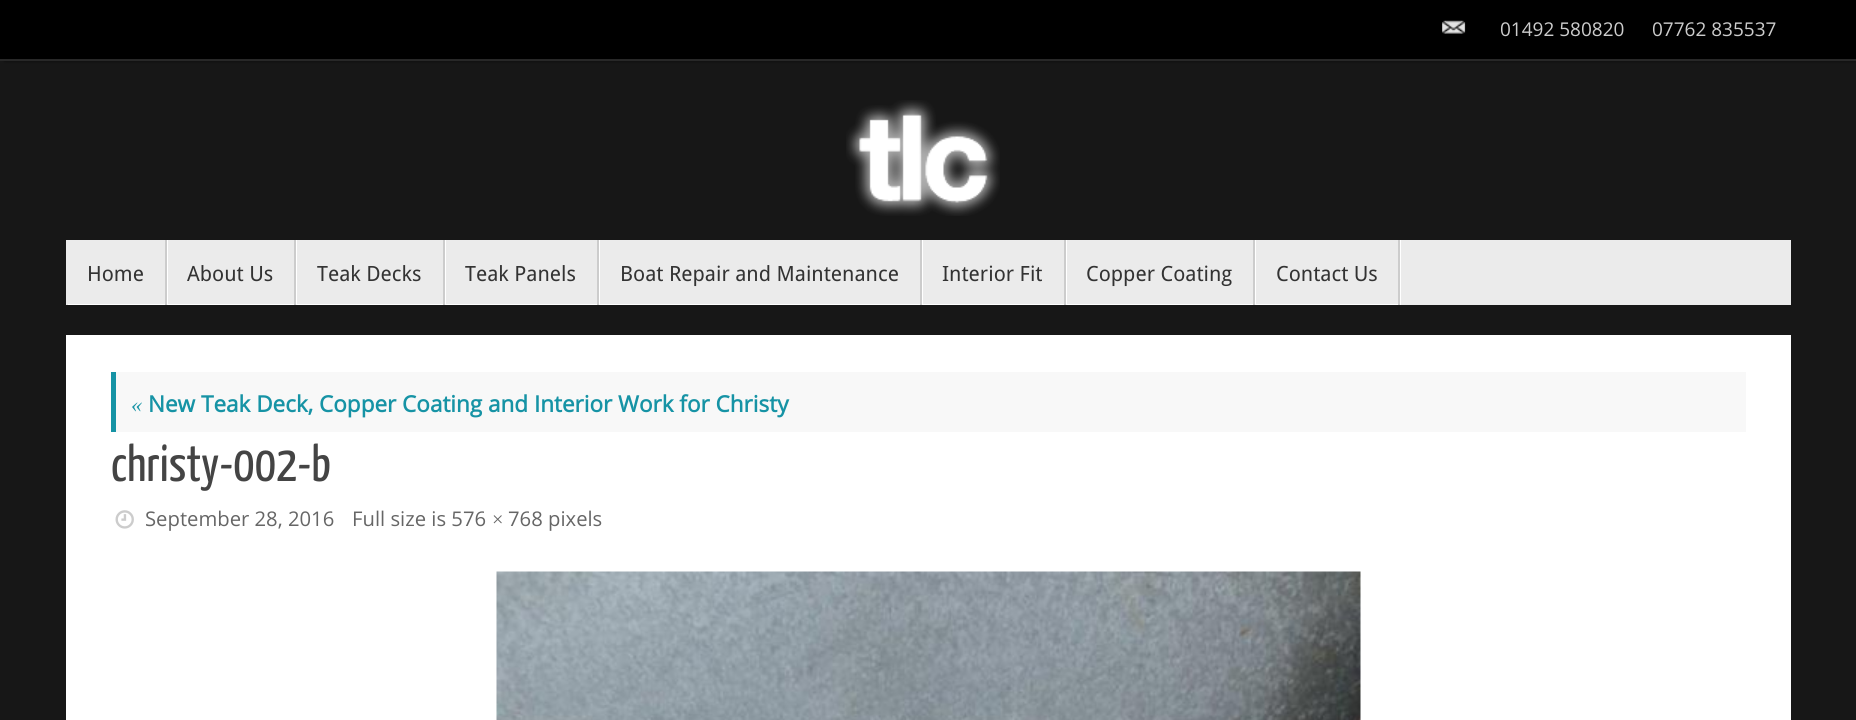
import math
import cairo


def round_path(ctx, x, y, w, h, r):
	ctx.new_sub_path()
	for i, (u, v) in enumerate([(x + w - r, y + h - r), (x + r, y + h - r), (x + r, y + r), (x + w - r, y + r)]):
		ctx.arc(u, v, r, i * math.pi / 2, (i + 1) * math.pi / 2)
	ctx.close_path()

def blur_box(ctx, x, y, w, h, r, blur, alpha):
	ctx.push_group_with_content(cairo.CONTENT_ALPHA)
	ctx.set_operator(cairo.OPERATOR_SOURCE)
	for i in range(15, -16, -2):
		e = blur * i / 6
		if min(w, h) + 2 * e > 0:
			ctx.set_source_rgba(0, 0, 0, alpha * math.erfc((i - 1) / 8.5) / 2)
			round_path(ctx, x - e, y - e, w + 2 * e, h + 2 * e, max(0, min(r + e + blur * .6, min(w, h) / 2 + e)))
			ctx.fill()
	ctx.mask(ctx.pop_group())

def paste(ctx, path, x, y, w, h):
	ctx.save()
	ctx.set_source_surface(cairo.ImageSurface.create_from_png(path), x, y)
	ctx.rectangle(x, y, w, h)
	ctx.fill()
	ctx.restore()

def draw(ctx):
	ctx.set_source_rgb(0.09, 0.09, 0.09)
	ctx.paint()
	ctx.set_source_rgb(0, 0, 0)
	blur_box(ctx, 5, 0, 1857, 60, 0, 2, 1)
	ctx.set_source_rgb(0, 0, 0)
	ctx.rectangle(0, 0, 1856, 59)
	ctx.fill()
	ctx.set_source_rgb(0.157, 0.157, 0.157)
	ctx.rectangle(0, 59, 1856, 2)
	ctx.fill()
	paste(ctx, 'media/1.png', 1442, 20, 24, 14)
	ctx.select_font_face('Open Sans')
	ctx.set_font_size(19)
	ctx.set_source_rgb(0.8, 0.8, 0.8)
	ctx.move_to(1500, 36)
	ctx.show_text('01492 580820')
	ctx.move_to(1652, 36)
	ctx.show_text('07762 835537')
	paste(ctx, 'media/2.png', 846, 100, 154, 116)
	ctx.set_source_rgb(0.918, 0.918, 0.918)
	ctx.rectangle(66, 240, 1725, 65)
	ctx.fill()
	ctx.set_source_rgb(1, 1, 1)
	ctx.new_path()
	ctx.move_to(68, 304)
	ctx.line_to(68, 305)
	ctx.line_to(168, 305)
	ctx.line_to(168, 240)
	ctx.line_to(166, 240)
	ctx.line_to(166, 304)
	ctx.close_path()
	ctx.fill()
	ctx.set_source_rgb(0.8, 0.8, 0.8)
	ctx.rectangle(165, 240, 2, 65)
	ctx.fill()
	ctx.select_font_face('Droid Sans')
	ctx.set_font_size(21)
	ctx.set_source_rgb(0.2, 0.2, 0.2)
	ctx.move_to(87, 281)
	ctx.show_text('Home')
	ctx.set_source_rgb(1, 1, 1)
	ctx.new_path()
	ctx.move_to(168, 304)
	ctx.line_to(168, 305)
	ctx.line_to(297, 305)
	ctx.line_to(297, 240)
	ctx.line_to(296, 240)
	ctx.line_to(296, 304)
	ctx.close_path()
	ctx.fill()
	ctx.set_source_rgb(0.8, 0.8, 0.8)
	ctx.rectangle(294, 240, 2, 65)
	ctx.fill()
	ctx.set_source_rgb(0.2, 0.2, 0.2)
	ctx.move_to(187, 281)
	ctx.show_text('About Us')
	ctx.set_source_rgb(1, 1, 1)
	ctx.new_path()
	ctx.move_to(297, 304)
	ctx.line_to(297, 305)
	ctx.line_to(446, 305)
	ctx.line_to(446, 240)
	ctx.line_to(444, 240)
	ctx.line_to(444, 304)
	ctx.close_path()
	ctx.fill()
	ctx.set_source_rgb(0.8, 0.8, 0.8)
	ctx.rectangle(443, 240, 2, 65)
	ctx.fill()
	ctx.set_source_rgb(0.2, 0.2, 0.2)
	ctx.move_to(317, 281)
	ctx.show_text('Teak Decks')
	ctx.set_source_rgb(1, 1, 1)
	ctx.new_path()
	ctx.move_to(446, 304)
	ctx.line_to(446, 305)
	ctx.line_to(600, 305)
	ctx.line_to(600, 240)
	ctx.line_to(598, 240)
	ctx.line_to(598, 304)
	ctx.close_path()
	ctx.fill()
	ctx.set_source_rgb(0.8, 0.8, 0.8)
	ctx.rectangle(597, 240, 2, 65)
	ctx.fill()
	ctx.set_source_rgb(0.2, 0.2, 0.2)
	ctx.move_to(465, 281)
	ctx.show_text('Teak Panels')
	ctx.set_source_rgb(1, 1, 1)
	ctx.new_path()
	ctx.move_to(600, 304)
	ctx.line_to(600, 305)
	ctx.line_to(923, 305)
	ctx.line_to(923, 240)
	ctx.line_to(921, 240)
	ctx.line_to(921, 304)
	ctx.close_path()
	ctx.fill()
	ctx.set_source_rgb(0.8, 0.8, 0.8)
	ctx.rectangle(920, 240, 2, 65)
	ctx.fill()
	ctx.set_source_rgb(0.2, 0.2, 0.2)
	ctx.move_to(620, 281)
	ctx.show_text('Boat Repair and Maintenance')
	ctx.set_source_rgb(1, 1, 1)
	ctx.new_path()
	ctx.move_to(923, 304)
	ctx.line_to(923, 305)
	ctx.line_to(1067, 305)
	ctx.line_to(1067, 240)
	ctx.line_to(1065, 240)
	ctx.line_to(1065, 304)
	ctx.close_path()
	ctx.fill()
	ctx.set_source_rgb(0.8, 0.8, 0.8)
	ctx.rectangle(1064, 240, 2, 65)
	ctx.fill()
	ctx.set_source_rgb(0.2, 0.2, 0.2)
	ctx.move_to(942, 281)
	ctx.show_text('Interior Fit')
	ctx.set_source_rgb(1, 1, 1)
	ctx.new_path()
	ctx.move_to(1067, 304)
	ctx.line_to(1067, 305)
	ctx.line_to(1256, 305)
	ctx.line_to(1256, 240)
	ctx.line_to(1254, 240)
	ctx.line_to(1254, 304)
	ctx.close_path()
	ctx.fill()
	ctx.set_source_rgb(0.8, 0.8, 0.8)
	ctx.rectangle(1253, 240, 2, 65)
	ctx.fill()
	ctx.set_source_rgb(0.2, 0.2, 0.2)
	ctx.move_to(1086, 281)
	ctx.show_text('Copper Coating')
	ctx.set_source_rgb(1, 1, 1)
	ctx.new_path()
	ctx.move_to(1256, 304)
	ctx.line_to(1256, 305)
	ctx.line_to(1401, 305)
	ctx.line_to(1401, 240)
	ctx.line_to(1400, 240)
	ctx.line_to(1400, 304)
	ctx.close_path()
	ctx.fill()
	ctx.set_source_rgb(0.8, 0.8, 0.8)
	ctx.rectangle(1398, 240, 2, 65)
	ctx.fill()
	ctx.set_source_rgb(0.2, 0.2, 0.2)
	ctx.move_to(1276, 281)
	ctx.show_text('Contact Us')
	ctx.set_source_rgb(1, 1, 1)
	ctx.rectangle(66, 335, 1725, 385)
	ctx.fill()
	ctx.set_source_rgb(0.969, 0.969, 0.969)
	ctx.rectangle(116, 372, 1630, 60)
	ctx.fill()
	ctx.set_source_rgb(0.086, 0.576, 0.647)
	ctx.rectangle(111, 372, 5, 60)
	ctx.fill()
	ctx.select_font_face('Liberation Serif', cairo.FONT_SLANT_ITALIC)
	ctx.set_font_size(22.5)
	ctx.move_to(131, 412)
	ctx.show_text('«')
	ctx.select_font_face('Open Sans', cairo.FONT_SLANT_NORMAL, cairo.FONT_WEIGHT_BOLD)
	ctx.move_to(148, 412)
	ctx.show_text('New Teak Deck, Copper Coating and Interior Work for Christy')
	ctx.select_font_face('Yanone Kaffeesatz')
	ctx.set_font_size(51)
	ctx.set_source_rgb(0.267, 0.267, 0.267)
	ctx.move_to(111, 481)
	ctx.show_text('christy-002-b')
	paste(ctx, 'media/3.png', 115, 510, 19, 19)
	ctx.select_font_face('Open Sans')
	ctx.set_font_size(20.25)
	ctx.set_source_rgb(0.4, 0.4, 0.4)
	ctx.move_to(145, 526)
	ctx.show_text('September 28, 2016')
	ctx.move_to(352, 526)
	ctx.show_text('Full size is 576')
	ctx.select_font_face('Liberation Serif')
	ctx.move_to(492, 526)
	ctx.show_text('×')
	ctx.select_font_face('Open Sans')
	ctx.move_to(508, 526)
	ctx.show_text('768 pixels')
	paste(ctx, 'media/4.png', 496, 571, 865, 149)


surface = cairo.ImageSurface(cairo.FORMAT_RGB24, 1856, 720)
ctx = cairo.Context(surface)
options = cairo.FontOptions()
options.set_hint_metrics(cairo.HINT_METRICS_OFF)
options.set_hint_style(cairo.HINT_STYLE_NONE)
ctx.set_font_options(options)
ctx.set_miter_limit(4)
draw(ctx)
surface.write_to_png('image.png')
